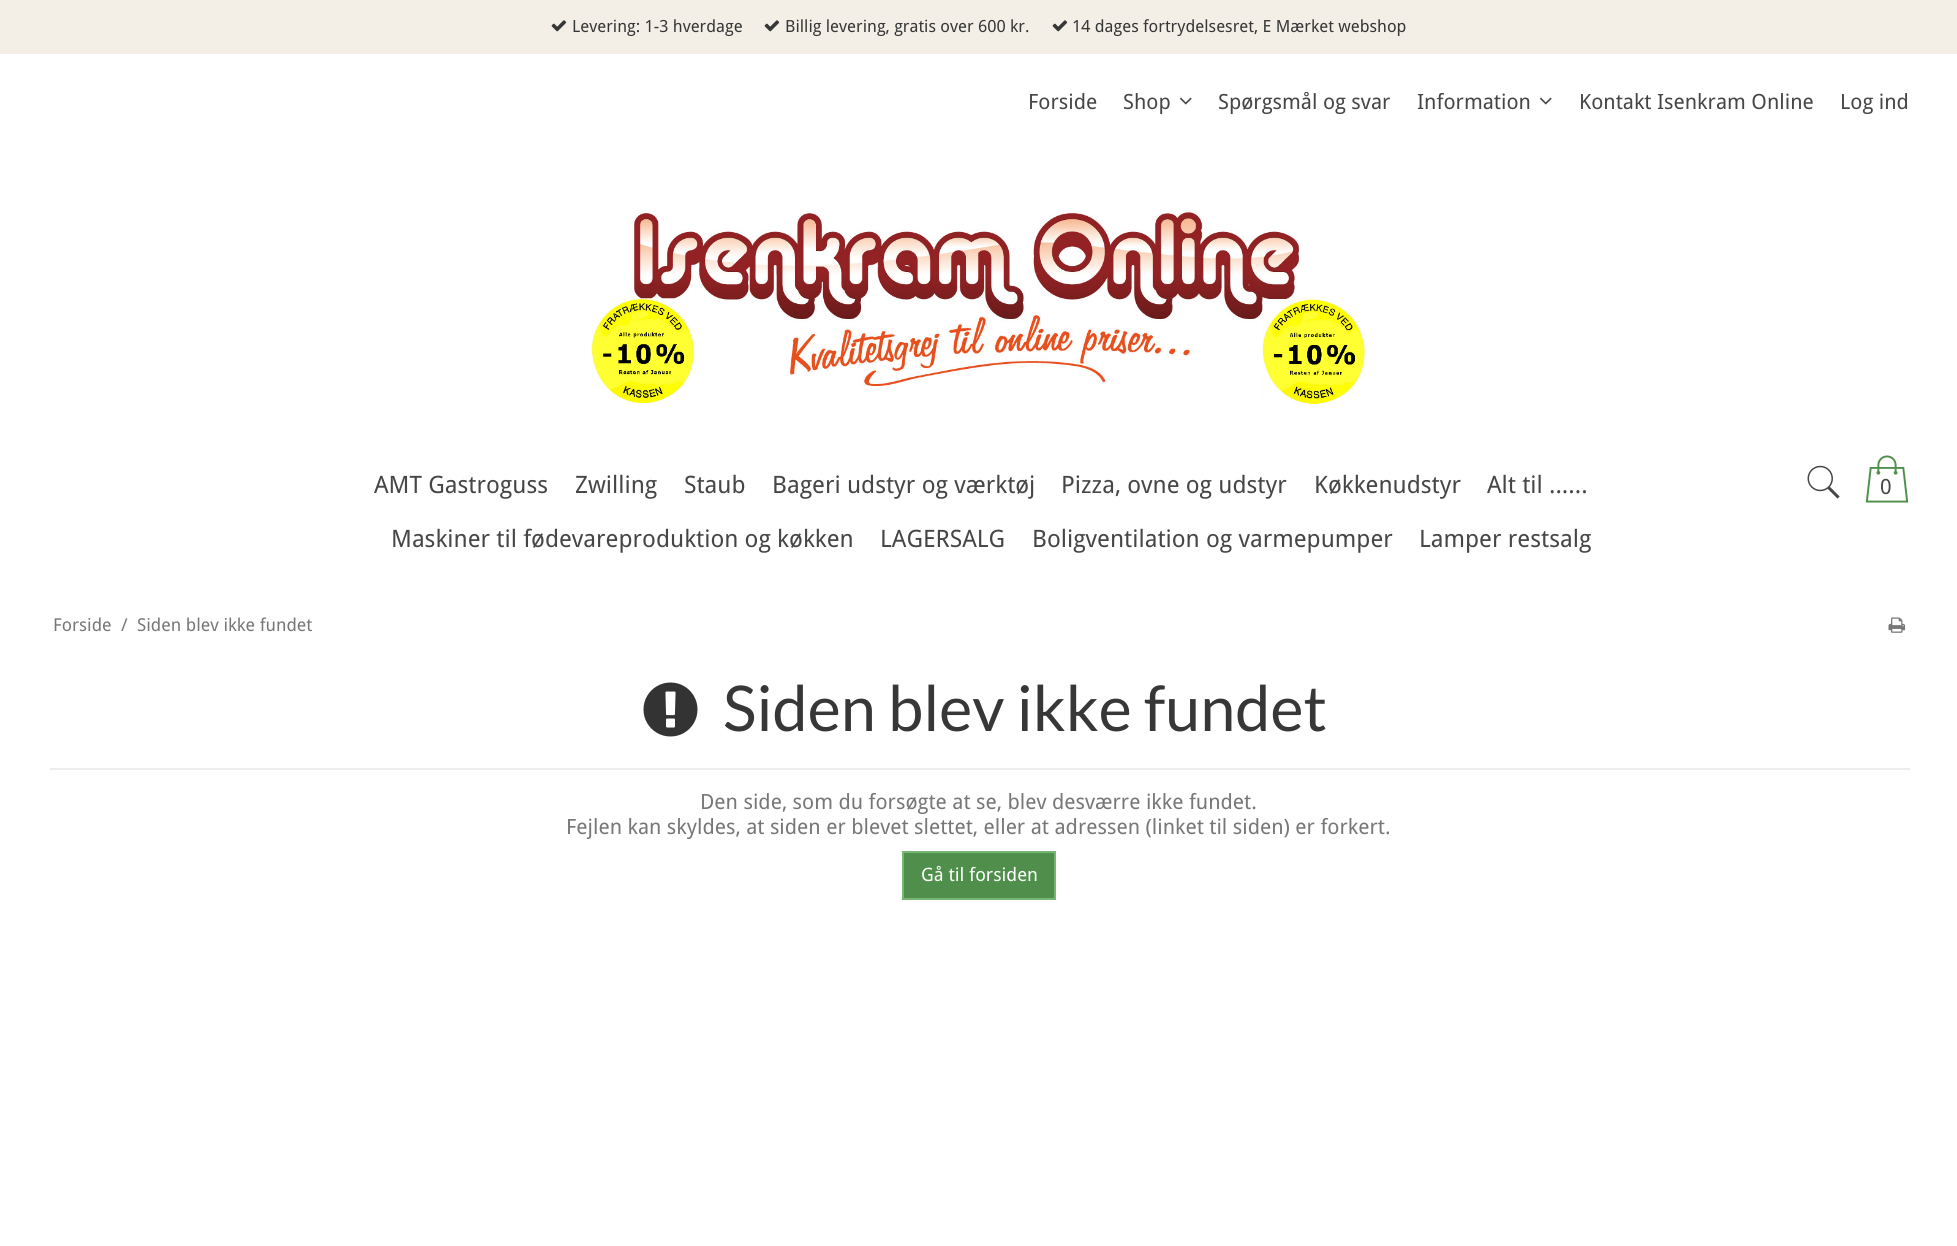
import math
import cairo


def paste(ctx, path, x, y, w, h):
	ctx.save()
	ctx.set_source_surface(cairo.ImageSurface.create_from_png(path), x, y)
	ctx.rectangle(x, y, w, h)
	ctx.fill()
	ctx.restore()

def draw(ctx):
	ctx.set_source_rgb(1, 1, 1)
	ctx.paint()
	ctx.set_source_rgb(0.953, 0.937, 0.906)
	ctx.rectangle(0, 0, 1957, 54)
	ctx.fill()
	paste(ctx, 'media/1.png', 551, 20, 16, 12)
	ctx.select_font_face('Droid Sans')
	ctx.set_font_size(16.75)
	ctx.set_source_rgb(0.216, 0.216, 0.216)
	ctx.move_to(572, 32)
	ctx.show_text('Levering: 1-3 hverdage')
	paste(ctx, 'media/1.png', 764, 20, 16, 12)
	ctx.move_to(785, 32)
	ctx.show_text('Billig levering, gratis over 600 kr.')
	paste(ctx, 'media/1.png', 1052, 20, 16, 12)
	ctx.move_to(1072, 32)
	ctx.show_text('14 dages fortrydelsesret, E Mærket webshop')
	ctx.set_font_size(21)
	ctx.set_source_rgb(0.275, 0.275, 0.275)
	ctx.move_to(1028, 109)
	ctx.show_text('Forside')
	ctx.move_to(1123, 109)
	ctx.show_text('Shop')
	paste(ctx, 'media/2.png', 1179, 97, 13, 8)
	ctx.move_to(1218, 109)
	ctx.show_text('Spørgsmål og svar')
	ctx.move_to(1417, 109)
	ctx.show_text('Information')
	paste(ctx, 'media/2.png', 1539, 97, 13, 8)
	ctx.move_to(1579, 109)
	ctx.show_text('Kontakt Isenkram Online')
	ctx.move_to(1840, 109)
	ctx.show_text('Log ind')
	paste(ctx, 'media/3.png', 591, 210, 774, 194)
	ctx.set_font_size(24)
	for x, y, s in [
		(374, 493, 'AMT Gastroguss'),
		(575, 493, 'Zwilling'),
		(684, 493, 'Staub'),
		(772, 493, 'Bageri udstyr og værktøj'),
		(1061, 493, 'Pizza, ovne og udstyr'),
		(1314, 493, 'Køkkenudstyr'),
		(1487, 493, 'Alt til ......'),
		(391, 547, 'Maskiner til fødevareproduktion og køkken'),
		(880, 547, 'LAGERSALG'),
		(1032, 547, 'Boligventilation og varmepumper'),
		(1419, 547, 'Lamper restsalg'),
	]:
		ctx.move_to(x, y)
		ctx.show_text(s)
	paste(ctx, 'media/4.png', 1807, 465, 33, 34)
	paste(ctx, 'media/5.png', 1865, 455, 44, 48)
	ctx.set_font_size(21)
	ctx.move_to(1880, 494)
	ctx.show_text('0')
	ctx.set_font_size(17.75)
	ctx.set_source_rgb(0.467, 0.467, 0.467)
	for x, y, s in [
		(53, 631, 'Forside'),
		(121, 631, '/'),
		(137, 631, 'Siden blev ikke fundet'),
	]:
		ctx.move_to(x, y)
		ctx.show_text(s)
	paste(ctx, 'media/6.png', 1888, 617, 18, 16)
	ctx.set_source_rgb(0.933, 0.933, 0.933)
	ctx.rectangle(50, 768, 1860, 2)
	ctx.fill()
	paste(ctx, 'media/7.png', 643, 682, 55, 55)
	ctx.select_font_face('Lato')
	ctx.set_font_size(63)
	ctx.set_source_rgb(0.216, 0.216, 0.216)
	ctx.move_to(723, 731)
	ctx.show_text('Siden blev ikke fundet')
	ctx.select_font_face('Droid Sans')
	ctx.set_font_size(21)
	ctx.set_source_rgb(0.467, 0.467, 0.467)
	ctx.move_to(700, 809)
	ctx.show_text('Den side, som du forsøgte at se, blev desværre ikke fundet.')
	ctx.move_to(566, 834)
	ctx.show_text('Fejlen kan skyldes, at siden er blevet slettet, eller at adressen (linket til siden) er forkert.')
	ctx.set_source_rgb(0.31, 0.561, 0.294)
	ctx.rectangle(903, 852, 152, 47)
	ctx.fill_preserve()
	ctx.set_source_rgb(0.463, 0.71, 0.447)
	ctx.stroke()
	ctx.set_font_size(18.5)
	ctx.set_source_rgb(1, 1, 1)
	ctx.move_to(921, 881)
	ctx.show_text('Gå til forsiden')


surface = cairo.ImageSurface(cairo.FORMAT_RGB24, 1957, 1246)
ctx = cairo.Context(surface)
options = cairo.FontOptions()
options.set_hint_metrics(cairo.HINT_METRICS_OFF)
options.set_hint_style(cairo.HINT_STYLE_NONE)
ctx.set_font_options(options)
ctx.set_miter_limit(4)
draw(ctx)
surface.write_to_png('image.png')
